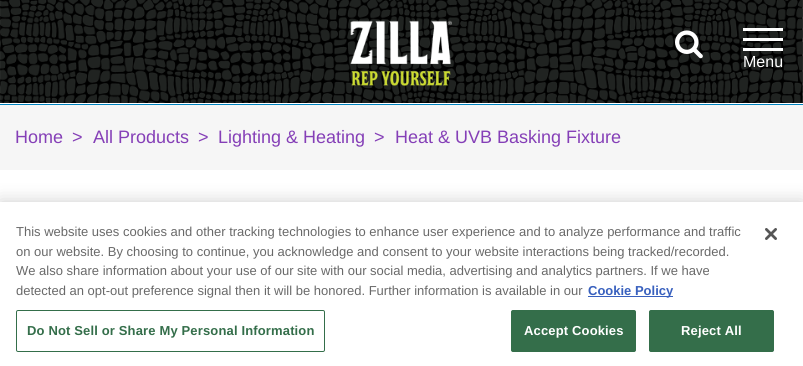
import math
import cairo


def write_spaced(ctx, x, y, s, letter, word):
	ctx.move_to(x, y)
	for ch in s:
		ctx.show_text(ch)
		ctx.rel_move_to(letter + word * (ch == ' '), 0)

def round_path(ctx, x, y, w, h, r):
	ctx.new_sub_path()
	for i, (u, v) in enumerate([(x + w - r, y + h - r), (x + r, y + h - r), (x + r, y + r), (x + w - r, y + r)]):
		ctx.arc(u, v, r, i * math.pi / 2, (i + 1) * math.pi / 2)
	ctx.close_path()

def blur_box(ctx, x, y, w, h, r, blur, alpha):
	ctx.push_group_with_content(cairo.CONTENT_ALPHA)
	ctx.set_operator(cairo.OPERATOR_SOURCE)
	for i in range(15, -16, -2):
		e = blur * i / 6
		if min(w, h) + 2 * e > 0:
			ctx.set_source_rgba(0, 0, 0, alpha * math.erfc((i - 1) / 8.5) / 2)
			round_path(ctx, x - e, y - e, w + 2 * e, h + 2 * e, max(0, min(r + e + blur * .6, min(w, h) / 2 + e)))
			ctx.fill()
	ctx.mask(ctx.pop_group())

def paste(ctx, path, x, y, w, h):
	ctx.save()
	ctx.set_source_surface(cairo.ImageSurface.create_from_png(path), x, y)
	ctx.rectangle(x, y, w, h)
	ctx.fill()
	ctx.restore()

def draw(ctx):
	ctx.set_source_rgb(1, 1, 1)
	ctx.paint()
	paste(ctx, 'media/1.png', 0, 0, 803, 103)
	paste(ctx, 'media/2.png', 350, 20, 102, 66)
	paste(ctx, 'media/3.png', 675, 30, 28, 29)
	ctx.set_source_rgb(1, 1, 1)
	ctx.rectangle(743, 38, 40, 3)
	ctx.rectangle(743, 28, 40, 3)
	ctx.rectangle(743, 48, 40, 3)
	ctx.fill()
	ctx.select_font_face('Liberation Sans')
	ctx.set_font_size(16)
	ctx.move_to(743, 67)
	ctx.show_text('Menu')
	ctx.set_source_rgb(0, 0.514, 0.745)
	ctx.rectangle(0, 104, 803, 1)
	ctx.fill()
	ctx.set_source_rgb(0.961, 0.961, 0.961)
	ctx.rectangle(0, 105, 803, 65)
	ctx.fill()
	ctx.set_font_size(18)
	ctx.set_source_rgb(0.522, 0.247, 0.718)
	for x, y, s in [
		(15, 143, 'Home'),
		(72, 143, '>'),
		(93, 143, 'All Products'),
		(198, 143, '>'),
		(218, 143, 'Lighting & Heating'),
		(374, 143, '>'),
		(395, 143, 'Heat & UVB Basking Fixture'),
	]:
		ctx.move_to(x, y)
		ctx.show_text(s)
	ctx.set_source_rgb(0, 0, 0)
	blur_box(ctx, 0, 202, 803, 164, 0, 9, 0.2)
	ctx.set_source_rgb(1, 1, 1)
	ctx.rectangle(0, 202, 803, 164)
	ctx.fill()
	ctx.set_font_size(13)
	ctx.set_source_rgb(0.412, 0.412, 0.412)
	for x, y, s in [
		(16, 236, 'This website uses cookies and other tracking technologies to enhance user experience and to analyze performance and traffic'),
		(16, 256, 'on our website. By choosing to continue, you acknowledge and consent to your website interactions being tracked/recorded.'),
		(16, 275, 'We also share information about your use of our site with our social media, advertising and analytics partners. If we have'),
		(16, 295, 'detected an opt-out preference signal then it will be honored. Further information is available in our'),
	]:
		ctx.move_to(x, y)
		ctx.show_text(s)
	ctx.set_source_rgb(0.22, 0.376, 0.745)
	ctx.rectangle(588, 296, 85, 1)
	ctx.fill()
	ctx.select_font_face('Liberation Sans', cairo.FONT_SLANT_NORMAL, cairo.FONT_WEIGHT_BOLD)
	ctx.move_to(588, 295)
	ctx.show_text('Cookie Policy')
	round_path(ctx, 16.5, 310.5, 308, 41, 1.5)
	ctx.set_source_rgb(0.204, 0.431, 0.29)
	ctx.set_line_width(1)
	ctx.stroke()
	write_spaced(ctx, 27, 335, 'Do Not Sell or Share My Personal Information', 0.15, 0)
	round_path(ctx, 511.5, 310.5, 124, 41, 1.5)
	ctx.fill_preserve()
	ctx.stroke()
	ctx.set_source_rgb(1, 1, 1)
	write_spaced(ctx, 524, 335, 'Accept Cookies', 0.15, 0)
	ctx.set_source_rgb(0.204, 0.431, 0.29)
	round_path(ctx, 649.5, 310.5, 124, 41, 1.5)
	ctx.fill_preserve()
	ctx.stroke()
	ctx.set_source_rgb(1, 1, 1)
	write_spaced(ctx, 681, 335, 'Reject All', 0.15, 0)
	paste(ctx, 'media/4.png', 765, 228, 12, 12)


surface = cairo.ImageSurface(cairo.FORMAT_RGB24, 803, 366)
ctx = cairo.Context(surface)
options = cairo.FontOptions()
options.set_hint_metrics(cairo.HINT_METRICS_OFF)
options.set_hint_style(cairo.HINT_STYLE_NONE)
ctx.set_font_options(options)
ctx.set_miter_limit(4)
draw(ctx)
surface.write_to_png('image.png')
